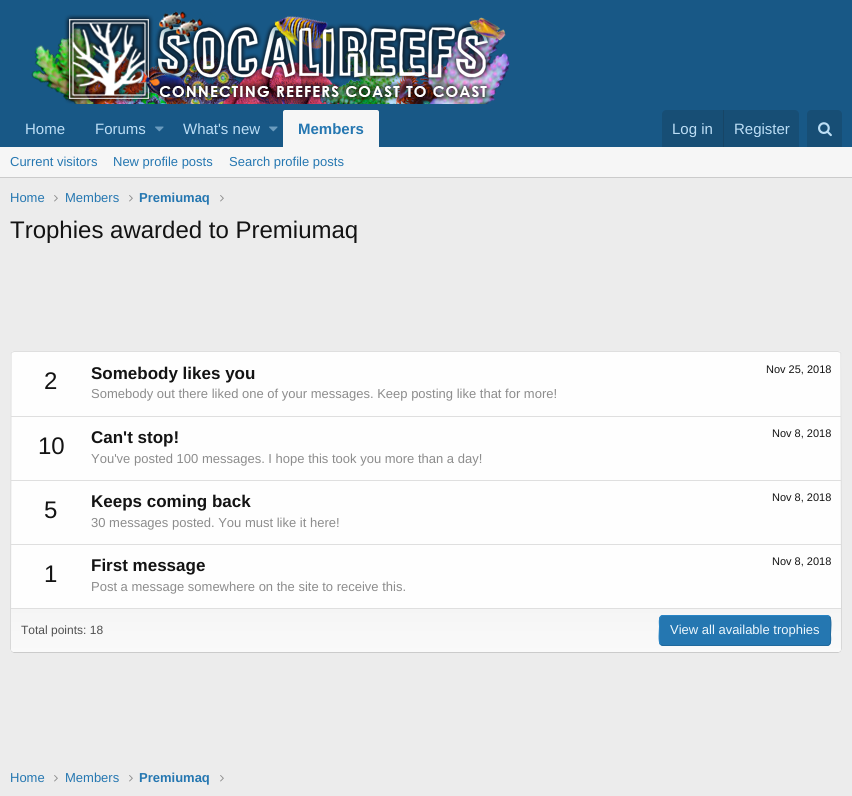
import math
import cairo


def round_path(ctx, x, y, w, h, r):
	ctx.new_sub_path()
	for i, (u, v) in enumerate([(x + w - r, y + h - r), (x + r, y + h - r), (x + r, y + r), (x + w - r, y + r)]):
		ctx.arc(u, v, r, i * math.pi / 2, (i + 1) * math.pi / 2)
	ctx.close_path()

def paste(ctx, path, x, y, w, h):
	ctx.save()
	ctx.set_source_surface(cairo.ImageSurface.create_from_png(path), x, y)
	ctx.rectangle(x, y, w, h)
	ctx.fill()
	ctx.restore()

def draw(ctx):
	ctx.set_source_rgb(0.925, 0.925, 0.925)
	ctx.paint()
	ctx.set_source_rgb(0.094, 0.345, 0.525)
	ctx.rectangle(0, 0, 852, 147)
	ctx.fill()
	paste(ctx, 'media/1.png', 31, 11, 479, 93)
	ctx.select_font_face('Liberation Sans')
	ctx.set_font_size(15)
	ctx.set_source_rgb(0.737, 0.871, 0.961)
	ctx.move_to(25, 134)
	ctx.show_text('Home')
	ctx.move_to(95, 134)
	ctx.show_text('Forums')
	paste(ctx, 'media/2.png', 155, 126, 9, 6)
	ctx.move_to(183, 134)
	ctx.show_text('What\'s new')
	paste(ctx, 'media/2.png', 269, 126, 9, 6)
	ctx.set_source_rgb(0.961, 0.961, 0.961)
	ctx.new_path()
	ctx.move_to(285, 110)
	ctx.line_to(377, 110)
	ctx.curve_to(378, 110, 379, 111, 379, 112)
	ctx.line_to(379, 147)
	ctx.line_to(283, 147)
	ctx.line_to(283, 112)
	ctx.curve_to(283, 111, 284, 110, 285, 110)
	ctx.close_path()
	ctx.fill()
	ctx.select_font_face('Liberation Sans', cairo.FONT_SLANT_NORMAL, cairo.FONT_WEIGHT_BOLD)
	ctx.set_source_rgb(0.145, 0.467, 0.694)
	ctx.move_to(298, 134)
	ctx.show_text('Members')
	ctx.set_source_rgb(0.09, 0.306, 0.459)
	ctx.new_path()
	ctx.move_to(666, 110)
	ctx.line_to(795, 110)
	ctx.curve_to(797, 110, 799, 112, 799, 114)
	ctx.line_to(799, 147)
	ctx.line_to(662, 147)
	ctx.line_to(662, 114)
	ctx.curve_to(662, 112, 664, 110, 666, 110)
	ctx.close_path()
	ctx.fill()
	ctx.select_font_face('Liberation Sans')
	ctx.set_source_rgb(0.737, 0.871, 0.961)
	ctx.move_to(672, 134)
	ctx.show_text('Log in')
	ctx.set_source_rgb(0.09, 0.271, 0.4)
	ctx.rectangle(723, 110, 1, 37)
	ctx.fill()
	ctx.set_source_rgb(0.737, 0.871, 0.961)
	ctx.move_to(734, 134)
	ctx.show_text('Register')
	ctx.set_source_rgb(0.09, 0.306, 0.459)
	ctx.new_path()
	ctx.move_to(811, 110)
	ctx.line_to(838, 110)
	ctx.curve_to(840, 110, 842, 112, 842, 114)
	ctx.line_to(842, 147)
	ctx.line_to(807, 147)
	ctx.line_to(807, 114)
	ctx.curve_to(807, 112, 809, 110, 811, 110)
	ctx.close_path()
	ctx.fill()
	paste(ctx, 'media/3.png', 818, 122, 14, 15)
	ctx.set_source_rgb(0.961, 0.961, 0.961)
	ctx.rectangle(0, 147, 852, 30)
	ctx.fill()
	ctx.set_source_rgb(0.796, 0.796, 0.796)
	ctx.rectangle(0, 177, 852, 1)
	ctx.fill()
	ctx.set_font_size(13)
	ctx.set_source_rgb(0.145, 0.467, 0.694)
	for x, y, s in [
		(10, 166, 'Current visitors'),
		(113, 166, 'New profile posts'),
		(229, 166, 'Search profile posts'),
		(10, 202, 'Home'),
	]:
		ctx.move_to(x, y)
		ctx.show_text(s)
	paste(ctx, 'media/4.png', 54, 195, 4, 7)
	ctx.move_to(65, 202)
	ctx.show_text('Members')
	paste(ctx, 'media/4.png', 129, 195, 4, 7)
	ctx.select_font_face('Liberation Sans', cairo.FONT_SLANT_NORMAL, cairo.FONT_WEIGHT_BOLD)
	ctx.move_to(139, 202)
	ctx.show_text('Premiumaq')
	paste(ctx, 'media/4.png', 220, 195, 4, 7)
	ctx.select_font_face('Liberation Sans')
	ctx.set_font_size(24)
	ctx.set_source_rgb(0.078, 0.078, 0.078)
	ctx.move_to(10, 238)
	ctx.show_text('Trophies awarded to Premiumaq')
	ctx.set_source_rgb(0.996, 0.996, 0.996)
	round_path(ctx, 10, 351, 832, 302, 4)
	ctx.fill()
	ctx.new_path()
	ctx.move_to(11.5, 352.5)
	ctx.line_to(14, 351.5)
	ctx.line_to(838, 351.5)
	ctx.line_to(840.5, 352.5)
	ctx.set_source_rgb(0.875, 0.875, 0.875)
	ctx.set_line_width(1)
	ctx.stroke()
	ctx.new_path()
	ctx.move_to(840.5, 352.5)
	ctx.line_to(841, 353.5)
	ctx.line_to(841.5, 600)
	ctx.line_to(841.5, 649)
	ctx.line_to(840.5, 651.5)
	ctx.set_source_rgb(0.847, 0.847, 0.847)
	ctx.stroke()
	ctx.new_path()
	ctx.move_to(840.5, 651.5)
	ctx.line_to(838, 652.5)
	ctx.line_to(14, 652.5)
	ctx.line_to(11.5, 651.5)
	ctx.set_source_rgb(0.796, 0.796, 0.796)
	ctx.stroke()
	ctx.new_path()
	ctx.move_to(11.5, 651.5)
	ctx.line_to(10.5, 649)
	ctx.line_to(11, 353.5)
	ctx.line_to(11.5, 352.5)
	ctx.set_source_rgb(0.847, 0.847, 0.847)
	ctx.stroke()
	ctx.set_source_rgb(0.078, 0.078, 0.078)
	ctx.move_to(44, 389)
	ctx.show_text('2')
	ctx.select_font_face('Liberation Sans', cairo.FONT_SLANT_NORMAL, cairo.FONT_WEIGHT_BOLD)
	ctx.set_font_size(17)
	ctx.move_to(91, 379)
	ctx.show_text('Somebody likes you')
	ctx.select_font_face('Liberation Sans')
	ctx.set_font_size(11)
	ctx.move_to(766, 373)
	ctx.show_text('Nov 25, 2018')
	ctx.set_font_size(13)
	ctx.set_source_rgb(0.549, 0.549, 0.549)
	ctx.move_to(91, 398)
	ctx.show_text('Somebody out there liked one of your messages. Keep posting like that for more!')
	ctx.set_source_rgb(0.875, 0.875, 0.875)
	ctx.rectangle(11, 416, 830, 1)
	ctx.fill()
	ctx.set_font_size(24)
	ctx.set_source_rgb(0.078, 0.078, 0.078)
	ctx.move_to(38, 454)
	ctx.show_text('10')
	ctx.select_font_face('Liberation Sans', cairo.FONT_SLANT_NORMAL, cairo.FONT_WEIGHT_BOLD)
	ctx.set_font_size(17)
	ctx.move_to(91, 443)
	ctx.show_text('Can\'t stop!')
	ctx.select_font_face('Liberation Sans')
	ctx.set_font_size(11)
	ctx.move_to(772, 437)
	ctx.show_text('Nov 8, 2018')
	ctx.set_font_size(13)
	ctx.set_source_rgb(0.549, 0.549, 0.549)
	ctx.move_to(91, 463)
	ctx.show_text('You\'ve posted 100 messages. I hope this took you more than a day!')
	ctx.set_source_rgb(0.875, 0.875, 0.875)
	ctx.rectangle(11, 480, 830, 1)
	ctx.fill()
	ctx.set_font_size(24)
	ctx.set_source_rgb(0.078, 0.078, 0.078)
	ctx.move_to(44, 518)
	ctx.show_text('5')
	ctx.select_font_face('Liberation Sans', cairo.FONT_SLANT_NORMAL, cairo.FONT_WEIGHT_BOLD)
	ctx.set_font_size(17)
	ctx.move_to(91, 507)
	ctx.show_text('Keeps coming back')
	ctx.select_font_face('Liberation Sans')
	ctx.set_font_size(11)
	ctx.move_to(772, 501)
	ctx.show_text('Nov 8, 2018')
	ctx.set_font_size(13)
	ctx.set_source_rgb(0.549, 0.549, 0.549)
	ctx.move_to(91, 527)
	ctx.show_text('30 messages posted. You must like it here!')
	ctx.set_source_rgb(0.875, 0.875, 0.875)
	ctx.rectangle(11, 544, 830, 1)
	ctx.fill()
	ctx.set_font_size(24)
	ctx.set_source_rgb(0.078, 0.078, 0.078)
	ctx.move_to(44, 582)
	ctx.show_text('1')
	ctx.select_font_face('Liberation Sans', cairo.FONT_SLANT_NORMAL, cairo.FONT_WEIGHT_BOLD)
	ctx.set_font_size(17)
	ctx.move_to(91, 571)
	ctx.show_text('First message')
	ctx.select_font_face('Liberation Sans')
	ctx.set_font_size(11)
	ctx.move_to(772, 565)
	ctx.show_text('Nov 8, 2018')
	ctx.set_font_size(13)
	ctx.set_source_rgb(0.549, 0.549, 0.549)
	ctx.move_to(91, 591)
	ctx.show_text('Post a message somewhere on the site to receive this.')
	gradient = cairo.LinearGradient(426, 609, 426, 652)
	gradient.add_color_stop_rgba(0, 0.961, 0.961, 0.961, 1)
	gradient.add_color_stop_rgba(1, 0.98, 0.98, 0.98, 1)
	ctx.set_source(gradient)
	ctx.new_path()
	ctx.move_to(11, 609)
	ctx.line_to(841, 609)
	ctx.line_to(841, 649)
	ctx.curve_to(841, 650.5, 839.5, 652, 838, 652)
	ctx.line_to(14, 652)
	ctx.curve_to(12.5, 652, 11, 650.5, 11, 649)
	ctx.close_path()
	ctx.fill()
	ctx.set_source_rgb(0.875, 0.875, 0.875)
	ctx.rectangle(11, 608, 830, 1)
	ctx.fill()
	ctx.set_font_size(12)
	ctx.set_source_rgb(0.314, 0.314, 0.314)
	ctx.move_to(21, 634)
	ctx.show_text('Total points: 18')
	ctx.set_source_rgb(0.145, 0.467, 0.694)
	round_path(ctx, 659, 615, 172, 31, 4)
	ctx.fill()
	ctx.new_path()
	ctx.move_to(829.5, 616.5)
	ctx.curve_to(832, 619, 830.5, 631, 830.5, 634.5)
	ctx.curve_to(830.5, 637, 832, 645.5, 827, 645.5)
	ctx.line_to(663, 645.5)
	ctx.line_to(660.5, 644.5)
	ctx.set_source_rgb(0.129, 0.412, 0.612)
	ctx.stroke()
	ctx.new_path()
	ctx.move_to(660.5, 644.5)
	ctx.curve_to(658, 642, 659.5, 630, 659.5, 626.5)
	ctx.curve_to(659.5, 624, 658, 615.5, 663, 615.5)
	ctx.line_to(827, 615.5)
	ctx.line_to(829.5, 616.5)
	ctx.set_source_rgb(0.161, 0.522, 0.776)
	ctx.stroke()
	ctx.set_font_size(13)
	ctx.set_source_rgb(0.929, 0.965, 0.992)
	ctx.move_to(670, 634)
	ctx.show_text('View all available trophies')
	ctx.set_source_rgb(0.145, 0.467, 0.694)
	ctx.move_to(10, 782)
	ctx.show_text('Home')
	paste(ctx, 'media/4.png', 54, 775, 4, 7)
	ctx.move_to(65, 782)
	ctx.show_text('Members')
	paste(ctx, 'media/4.png', 129, 775, 4, 7)
	ctx.select_font_face('Liberation Sans', cairo.FONT_SLANT_NORMAL, cairo.FONT_WEIGHT_BOLD)
	ctx.move_to(139, 782)
	ctx.show_text('Premiumaq')
	paste(ctx, 'media/4.png', 220, 775, 4, 7)


surface = cairo.ImageSurface(cairo.FORMAT_RGB24, 852, 796)
ctx = cairo.Context(surface)
options = cairo.FontOptions()
options.set_hint_metrics(cairo.HINT_METRICS_OFF)
options.set_hint_style(cairo.HINT_STYLE_NONE)
ctx.set_font_options(options)
ctx.set_miter_limit(4)
draw(ctx)
surface.write_to_png('image.png')
